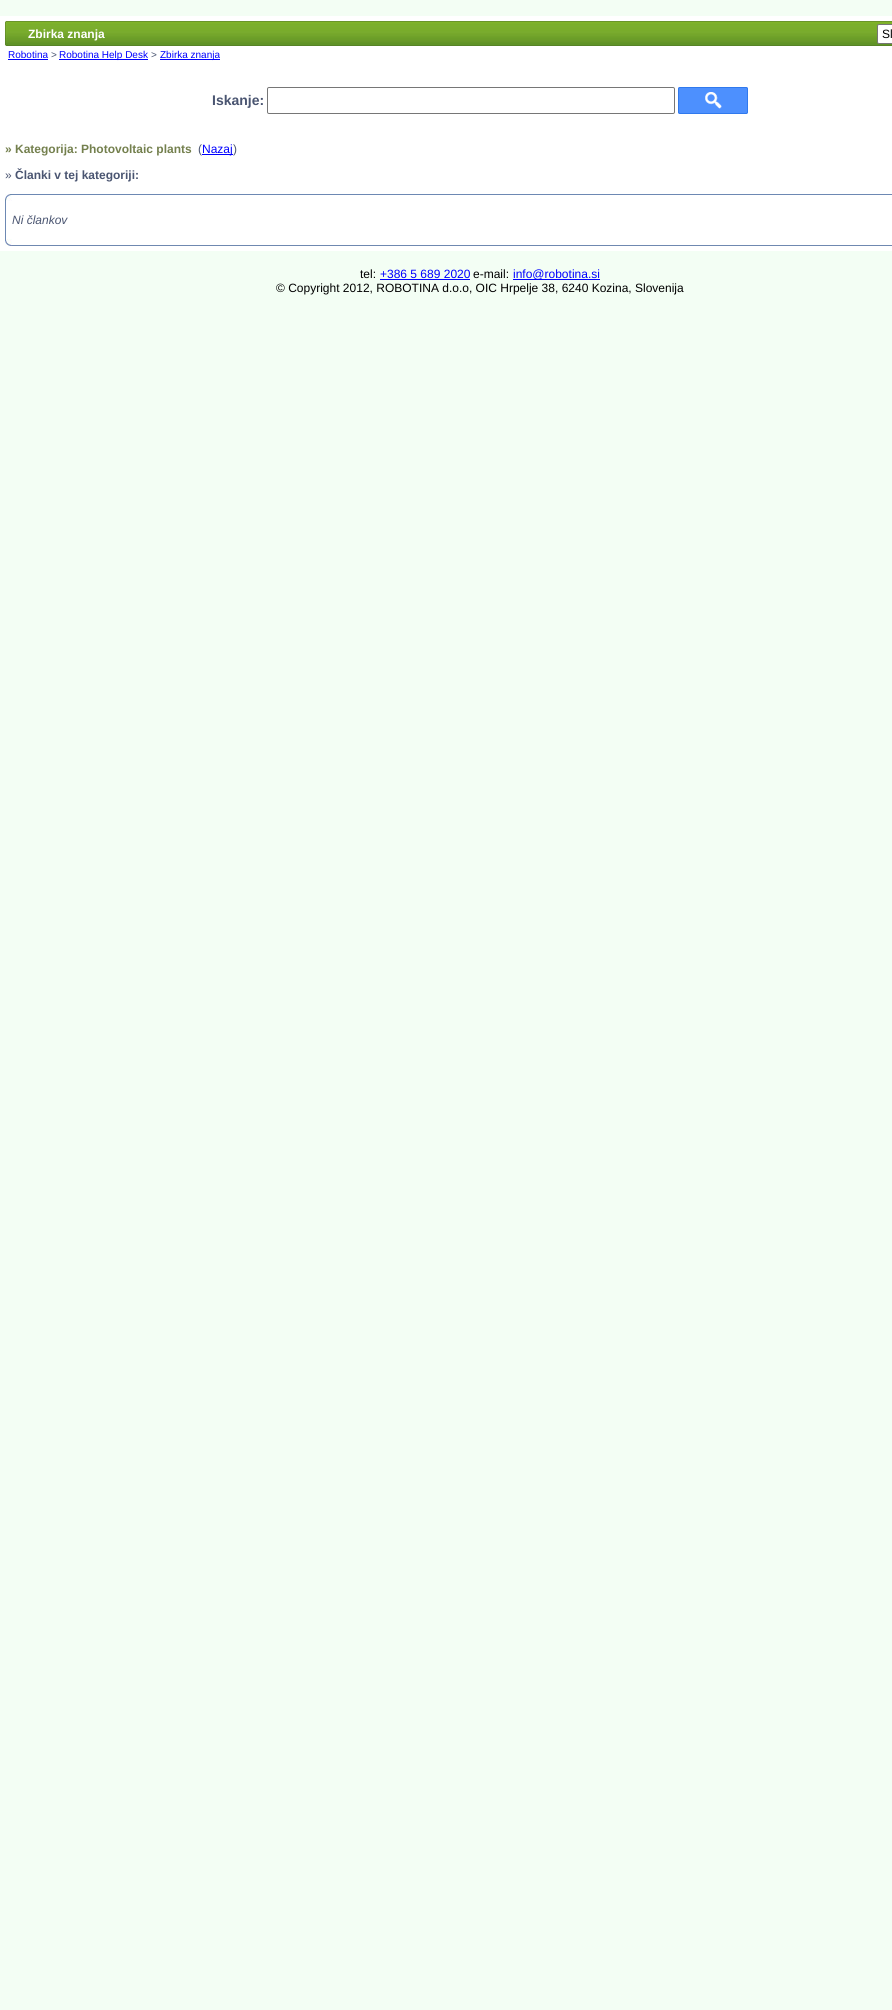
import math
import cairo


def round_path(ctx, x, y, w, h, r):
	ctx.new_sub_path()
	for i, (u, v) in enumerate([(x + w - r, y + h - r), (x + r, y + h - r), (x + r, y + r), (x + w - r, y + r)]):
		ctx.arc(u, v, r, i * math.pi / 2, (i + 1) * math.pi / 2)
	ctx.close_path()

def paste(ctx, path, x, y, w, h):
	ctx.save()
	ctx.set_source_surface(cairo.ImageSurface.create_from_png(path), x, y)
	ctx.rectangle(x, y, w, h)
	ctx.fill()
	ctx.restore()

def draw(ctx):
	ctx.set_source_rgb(0.953, 0.996, 0.957)
	ctx.paint()
	ctx.set_source_rgb(1, 1, 1)
	ctx.rectangle(0, 16, 892, 235)
	ctx.fill()
	paste(ctx, 'media/1.png', 5, 21, 3, 25)
	paste(ctx, 'media/2.png', 8, 21, 20, 25)
	paste(ctx, 'media/3.png', 28, 21, 849, 25)
	ctx.select_font_face('Liberation Sans', cairo.FONT_SLANT_NORMAL, cairo.FONT_WEIGHT_BOLD)
	ctx.set_font_size(12)
	ctx.move_to(28, 38)
	ctx.show_text('Zbirka znanja')
	paste(ctx, 'media/4.png', 877, 21, 15, 25)
	round_path(ctx, 877.5, 24.5, 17, 19, 1.5)
	ctx.fill_preserve()
	ctx.set_source_rgb(0.463, 0.463, 0.463)
	ctx.set_line_width(1)
	ctx.stroke()
	ctx.select_font_face('Liberation Sans')
	ctx.set_source_rgb(0, 0, 0)
	ctx.move_to(882, 38)
	ctx.show_text('Sl')
	ctx.set_font_size(10)
	ctx.set_source_rgb(0, 0, 1)
	ctx.move_to(8, 58)
	ctx.show_text('Robotina')
	ctx.rectangle(8, 59, 40, 1)
	ctx.fill()
	ctx.set_source_rgb(0.29, 0.333, 0.443)
	ctx.move_to(51, 58)
	ctx.show_text('>')
	ctx.set_source_rgb(0, 0, 1)
	ctx.rectangle(59, 59, 89, 1)
	ctx.fill()
	ctx.move_to(59, 58)
	ctx.show_text('Robotina Help Desk')
	ctx.set_source_rgb(0.29, 0.333, 0.443)
	ctx.move_to(151, 58)
	ctx.show_text('>')
	ctx.set_source_rgb(0, 0, 1)
	ctx.rectangle(160, 59, 60, 1)
	ctx.fill()
	ctx.move_to(160, 58)
	ctx.show_text('Zbirka znanja')
	ctx.select_font_face('Liberation Sans', cairo.FONT_SLANT_NORMAL, cairo.FONT_WEIGHT_BOLD)
	ctx.set_font_size(14)
	ctx.set_source_rgb(0.29, 0.333, 0.443)
	ctx.move_to(212, 105)
	ctx.show_text('Iskanje:')
	round_path(ctx, 267.5, 87.5, 407, 26, 1.5)
	ctx.set_source_rgb(0.463, 0.463, 0.463)
	ctx.stroke()
	ctx.set_source_rgb(0.302, 0.565, 0.996)
	round_path(ctx, 678, 87, 70, 27, 2)
	ctx.fill()
	paste(ctx, 'media/5.png', 705, 92, 17, 17)
	round_path(ctx, 678.5, 87.5, 69, 26, 1.5)
	ctx.set_source_rgb(0.188, 0.475, 0.929)
	ctx.stroke()
	ctx.set_font_size(12)
	ctx.set_source_rgb(0.455, 0.502, 0.306)
	ctx.move_to(5, 153)
	ctx.show_text('» Kategorija: Photovoltaic plants')
	ctx.select_font_face('Liberation Sans')
	ctx.set_source_rgb(0.29, 0.333, 0.443)
	ctx.move_to(198, 153)
	ctx.show_text('(')
	ctx.set_source_rgb(0, 0, 1)
	ctx.rectangle(202, 154, 31, 1)
	ctx.fill()
	ctx.move_to(202, 153)
	ctx.show_text('Nazaj')
	ctx.set_source_rgb(0.29, 0.333, 0.443)
	ctx.move_to(233, 153)
	ctx.show_text(')')
	ctx.move_to(5, 179)
	ctx.show_text('»')
	ctx.select_font_face('Liberation Sans', cairo.FONT_SLANT_NORMAL, cairo.FONT_WEIGHT_BOLD)
	ctx.move_to(15, 179)
	ctx.show_text('Članki v tej kategoriji:')
	paste(ctx, 'media/6.png', 5, 194, 7, 7)
	ctx.set_source_rgb(0.427, 0.533, 0.702)
	ctx.rectangle(12, 194, 880, 1)
	ctx.fill()
	ctx.rectangle(5, 201, 1, 38)
	ctx.fill()
	ctx.select_font_face('Liberation Sans', cairo.FONT_SLANT_ITALIC)
	ctx.set_source_rgb(0.29, 0.333, 0.443)
	ctx.move_to(12, 224)
	ctx.show_text('Ni člankov')
	paste(ctx, 'media/7.png', 5, 239, 7, 7)
	ctx.set_source_rgb(0.435, 0.533, 0.69)
	ctx.rectangle(12, 245, 880, 1)
	ctx.fill()
	ctx.select_font_face('Liberation Sans')
	ctx.set_source_rgb(0, 0, 0)
	ctx.move_to(360, 278)
	ctx.show_text('tel:')
	ctx.set_source_rgb(0, 0, 1)
	ctx.move_to(380, 278)
	ctx.show_text('+386 5 689 2020')
	ctx.rectangle(380, 279, 90, 1)
	ctx.fill()
	ctx.set_source_rgb(0, 0, 0)
	ctx.move_to(473, 278)
	ctx.show_text('e-mail:')
	ctx.set_source_rgb(0, 0, 1)
	ctx.rectangle(513, 279, 87, 1)
	ctx.fill()
	ctx.move_to(513, 278)
	ctx.show_text('info@robotina.si')
	ctx.set_source_rgb(0, 0, 0)
	ctx.move_to(276, 292)
	ctx.show_text('© Copyright 2012, ROBOTINA d.o.o, OIC Hrpelje 38, 6240 Kozina, Slovenija')


surface = cairo.ImageSurface(cairo.FORMAT_RGB24, 892, 2010)
ctx = cairo.Context(surface)
options = cairo.FontOptions()
options.set_hint_metrics(cairo.HINT_METRICS_OFF)
options.set_hint_style(cairo.HINT_STYLE_NONE)
ctx.set_font_options(options)
ctx.set_miter_limit(4)
draw(ctx)
surface.write_to_png('image.png')
